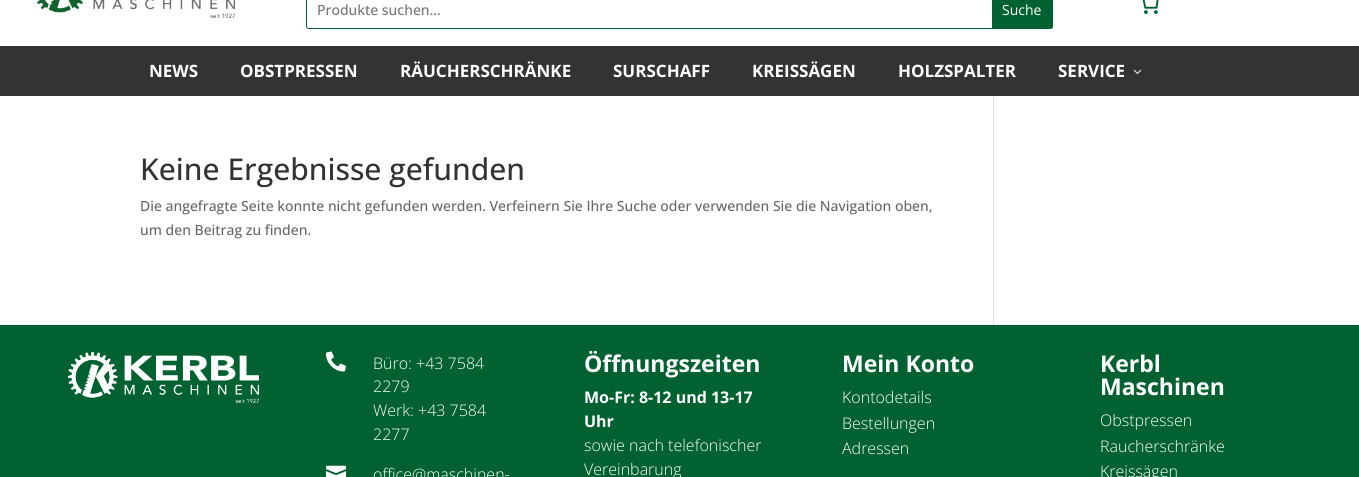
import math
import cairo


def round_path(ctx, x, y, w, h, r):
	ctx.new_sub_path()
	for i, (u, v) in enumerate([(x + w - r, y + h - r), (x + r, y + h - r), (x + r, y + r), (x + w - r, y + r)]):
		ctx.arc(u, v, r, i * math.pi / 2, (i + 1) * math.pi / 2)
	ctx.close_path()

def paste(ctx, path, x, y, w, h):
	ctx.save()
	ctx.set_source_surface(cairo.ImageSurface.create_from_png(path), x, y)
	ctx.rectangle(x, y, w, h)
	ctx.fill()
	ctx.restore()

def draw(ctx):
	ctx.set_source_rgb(1, 1, 1)
	ctx.paint()
	paste(ctx, 'media/1.png', 37, 0, 198, 18)
	round_path(ctx, 306.5, -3.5, 746, 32, 2.5)
	ctx.set_source_rgb(0.008, 0.38, 0.188)
	ctx.set_line_width(1)
	ctx.stroke()
	ctx.select_font_face('Open Sans Medium')
	ctx.set_font_size(14)
	ctx.set_source_rgb(0.459, 0.459, 0.459)
	ctx.move_to(317, 15)
	ctx.show_text('Produkte suchen…')
	ctx.set_source_rgb(0.008, 0.38, 0.188)
	ctx.new_path()
	ctx.move_to(992.5, -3.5)
	ctx.line_to(1050, -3.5)
	ctx.curve_to(1051.5, -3.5, 1052.5, -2.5, 1052.5, -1)
	ctx.line_to(1052.5, 26)
	ctx.curve_to(1052.5, 27.5, 1051.5, 28.5, 1050, 28.5)
	ctx.line_to(992.5, 28.5)
	ctx.close_path()
	ctx.fill_preserve()
	ctx.stroke()
	ctx.select_font_face('Open Sans')
	ctx.set_source_rgb(1, 1, 1)
	ctx.move_to(1002, 15)
	ctx.show_text('Suche')
	paste(ctx, 'media/2.png', 1142, 0, 17, 14)
	ctx.set_source_rgb(0.2, 0.2, 0.2)
	ctx.rectangle(0, 46, 1359, 50)
	ctx.fill()
	ctx.select_font_face('Open Sans', cairo.FONT_SLANT_NORMAL, cairo.FONT_WEIGHT_BOLD)
	ctx.set_font_size(17)
	ctx.set_source_rgb(1, 1, 1)
	for x, y, s in [
		(149, 77, 'NEWS'),
		(240, 77, 'OBSTPRESSEN'),
		(400, 77, 'RÄUCHERSCHRÄNKE'),
		(613, 77, 'SURSCHAFF'),
		(752, 77, 'KREISSÄGEN'),
		(898, 77, 'HOLZSPALTER'),
		(1058, 77, 'SERVICE'),
	]:
		ctx.move_to(x, y)
		ctx.show_text(s)
	paste(ctx, 'media/3.png', 1133, 69, 9, 5)
	ctx.select_font_face('Open Sans Medium')
	ctx.set_font_size(30)
	ctx.set_source_rgb(0.2, 0.2, 0.2)
	ctx.move_to(140, 180)
	ctx.show_text('Keine Ergebnisse gefunden')
	ctx.set_font_size(14)
	ctx.set_source_rgb(0.4, 0.4, 0.4)
	ctx.move_to(140, 211)
	ctx.show_text('Die angefragte Seite konnte nicht gefunden werden. Verfeinern Sie Ihre Suche oder verwenden Sie die Navigation oben,')
	ctx.move_to(140, 235)
	ctx.show_text('um den Beitrag zu finden.')
	ctx.set_source_rgb(0.886, 0.886, 0.886)
	ctx.rectangle(993, 96, 1, 229)
	ctx.fill()
	ctx.set_source_rgb(0.008, 0.38, 0.188)
	ctx.rectangle(0, 325, 1359, 152)
	ctx.fill()
	paste(ctx, 'media/4.png', 68, 352, 191, 51)
	paste(ctx, 'media/5.png', 326, 351, 20, 21)
	ctx.select_font_face('Open Sans Light')
	ctx.set_font_size(16)
	ctx.set_source_rgb(1, 1, 1)
	for x, y, s in [
		(373, 369, 'Büro: +43 7584'),
		(373, 392, '2279'),
		(373, 416, 'Werk: +43 7584'),
		(373, 440, '2277'),
	]:
		ctx.move_to(x, y)
		ctx.show_text(s)
	paste(ctx, 'media/6.png', 326, 465, 20, 12)
	ctx.move_to(373, 480)
	ctx.show_text('office@maschinen-')
	ctx.select_font_face('Open Sans', cairo.FONT_SLANT_NORMAL, cairo.FONT_WEIGHT_BOLD)
	ctx.set_font_size(23)
	ctx.move_to(584, 372)
	ctx.show_text('Öffnungszeiten')
	ctx.set_font_size(16)
	ctx.move_to(584, 403)
	ctx.show_text('Mo-Fr: 8-12 und 13-17')
	ctx.move_to(584, 427)
	ctx.show_text('Uhr')
	ctx.select_font_face('Open Sans Light')
	ctx.move_to(584, 451)
	ctx.show_text('sowie nach telefonischer')
	ctx.move_to(584, 475)
	ctx.show_text('Vereinbarung')
	ctx.select_font_face('Open Sans', cairo.FONT_SLANT_NORMAL, cairo.FONT_WEIGHT_BOLD)
	ctx.set_font_size(23)
	ctx.move_to(842, 372)
	ctx.show_text('Mein Konto')
	ctx.select_font_face('Open Sans Light')
	ctx.set_font_size(16)
	for x, y, s in [
		(842, 403, 'Kontodetails'),
		(842, 429, 'Bestellungen'),
		(842, 454, 'Adressen'),
	]:
		ctx.move_to(x, y)
		ctx.show_text(s)
	ctx.select_font_face('Open Sans', cairo.FONT_SLANT_NORMAL, cairo.FONT_WEIGHT_BOLD)
	ctx.set_font_size(23)
	ctx.move_to(1100, 372)
	ctx.show_text('Kerbl')
	ctx.move_to(1100, 395)
	ctx.show_text('Maschinen')
	ctx.select_font_face('Open Sans Light')
	ctx.set_font_size(16)
	for x, y, s in [
		(1100, 426, 'Obstpressen'),
		(1100, 452, 'Raucherschränke'),
		(1100, 477, 'Kreissägen'),
	]:
		ctx.move_to(x, y)
		ctx.show_text(s)


surface = cairo.ImageSurface(cairo.FORMAT_RGB24, 1359, 477)
ctx = cairo.Context(surface)
options = cairo.FontOptions()
options.set_hint_metrics(cairo.HINT_METRICS_OFF)
options.set_hint_style(cairo.HINT_STYLE_NONE)
ctx.set_font_options(options)
ctx.set_miter_limit(4)
draw(ctx)
surface.write_to_png('image.png')
